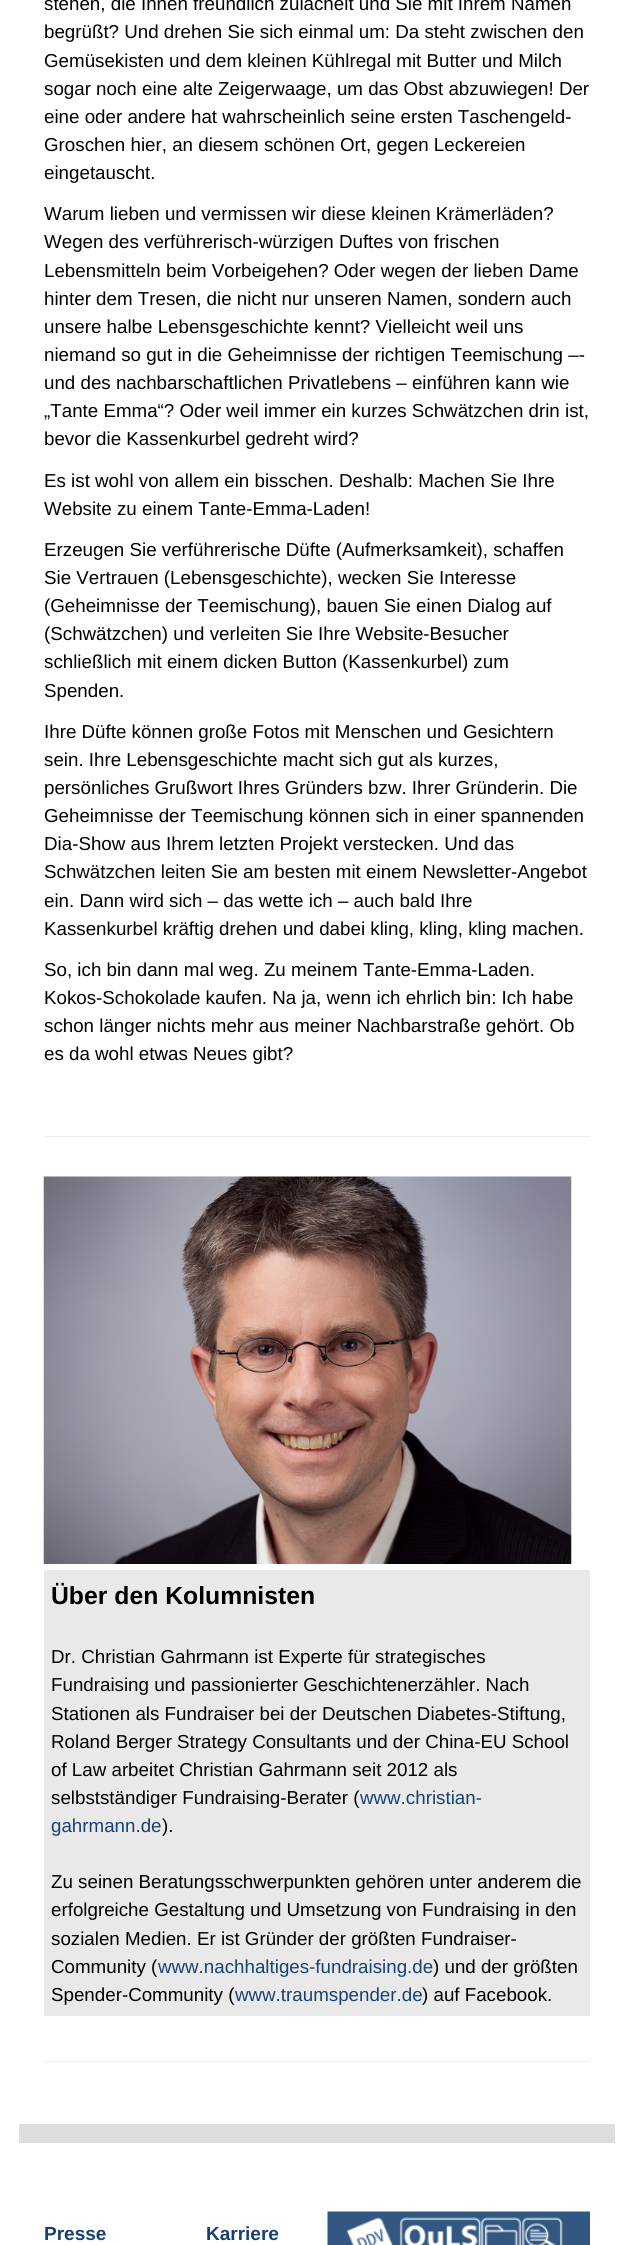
import math
import cairo


def paste(ctx, path, x, y, w, h):
	ctx.save()
	ctx.set_source_surface(cairo.ImageSurface.create_from_png(path), x, y)
	ctx.rectangle(x, y, w, h)
	ctx.fill()
	ctx.restore()

def draw(ctx):
	ctx.set_source_rgb(1, 1, 1)
	ctx.paint()
	ctx.set_source_rgb(0.871, 0.871, 0.871)
	ctx.rectangle(19, 2124, 596, 19)
	ctx.fill()
	ctx.select_font_face('Liberation Sans')
	ctx.set_font_size(18.75)
	ctx.set_source_rgb(0, 0, 0)
	for x, y, s in [
		(44, 10, 'stehen, die Ihnen freundlich zulächelt und Sie mit Ihrem Namen'),
		(44, 38, 'begrüßt? Und drehen Sie sich einmal um: Da steht zwischen den'),
		(44, 67, 'Gemüsekisten und dem kleinen Kühlregal mit Butter und Milch'),
		(44, 95, 'sogar noch eine alte Zeigerwaage, um das Obst abzuwiegen! Der'),
		(44, 123, 'eine oder andere hat wahrscheinlich seine ersten Taschengeld-'),
		(44, 151, 'Groschen hier, an diesem schönen Ort, gegen Leckereien'),
		(44, 179, 'eingetauscht.'),
		(44, 220, 'Warum lieben und vermissen wir diese kleinen Krämerläden?'),
		(44, 248, 'Wegen des verführerisch-würzigen Duftes von frischen'),
		(44, 277, 'Lebensmitteln beim Vorbeigehen? Oder wegen der lieben Dame'),
		(44, 305, 'hinter dem Tresen, die nicht nur unseren Namen, sondern auch'),
		(44, 333, 'unsere halbe Lebensgeschichte kennt? Vielleicht weil uns'),
		(44, 361, 'niemand so gut in die Geheimnisse der richtigen Teemischung –-'),
		(44, 389, 'und des nachbarschaftlichen Privatlebens – einführen kann wie'),
		(44, 417, '„Tante Emma“? Oder weil immer ein kurzes Schwätzchen drin ist,'),
		(44, 445, 'bevor die Kassenkurbel gedreht wird?'),
		(44, 487, 'Es ist wohl von allem ein bisschen. Deshalb: Machen Sie Ihre'),
		(44, 515, 'Website zu einem Tante-Emma-Laden!'),
		(44, 556, 'Erzeugen Sie verführerische Düfte (Aufmerksamkeit), schaffen'),
		(44, 584, 'Sie Vertrauen (Lebensgeschichte), wecken Sie Interesse'),
		(44, 612, '(Geheimnisse der Teemischung), bauen Sie einen Dialog auf'),
		(44, 640, '(Schwätzchen) und verleiten Sie Ihre Website-Besucher'),
		(44, 668, 'schließlich mit einem dicken Button (Kassenkurbel) zum'),
		(44, 697, 'Spenden.'),
		(44, 738, 'Ihre Düfte können große Fotos mit Menschen und Gesichtern'),
		(44, 766, 'sein. Ihre Lebensgeschichte macht sich gut als kurzes,'),
		(44, 794, 'persönliches Grußwort Ihres Gründers bzw. Ihrer Gründerin. Die'),
		(44, 822, 'Geheimnisse der Teemischung können sich in einer spannenden'),
		(44, 850, 'Dia-Show aus Ihrem letzten Projekt verstecken. Und das'),
		(44, 878, 'Schwätzchen leiten Sie am besten mit einem Newsletter-Angebot'),
		(44, 907, 'ein. Dann wird sich – das wette ich – auch bald Ihre'),
		(44, 935, 'Kassenkurbel kräftig drehen und dabei kling, kling, kling machen.'),
		(44, 976, 'So, ich bin dann mal weg. Zu meinem Tante-Emma-Laden.'),
		(44, 1004, 'Kokos-Schokolade kaufen. Na ja, wenn ich ehrlich bin: Ich habe'),
		(44, 1032, 'schon länger nichts mehr aus meiner Nachbarstraße gehört. Ob'),
		(44, 1060, 'es da wohl etwas Neues gibt?'),
	]:
		ctx.move_to(x, y)
		ctx.show_text(s)
	ctx.set_source_rgb(0.933, 0.933, 0.933)
	ctx.rectangle(44, 1136, 546, 1)
	ctx.fill()
	paste(ctx, 'media/1.png', 43, 1176, 529, 388)
	ctx.set_source_rgb(0.914, 0.914, 0.914)
	ctx.rectangle(44, 1570, 546, 446)
	ctx.fill()
	ctx.select_font_face('Liberation Sans', cairo.FONT_SLANT_NORMAL, cairo.FONT_WEIGHT_BOLD)
	ctx.set_font_size(24.75)
	ctx.set_source_rgb(0, 0, 0)
	ctx.move_to(51, 1604)
	ctx.show_text('Über den Kolumnisten')
	ctx.select_font_face('Liberation Sans')
	ctx.set_font_size(18.75)
	for x, y, s in [
		(51, 1663, 'Dr. Christian Gahrmann ist Experte für strategisches'),
		(51, 1691, 'Fundraising und passionierter Geschichtenerzähler. Nach'),
		(51, 1720, 'Stationen als Fundraiser bei der Deutschen Diabetes-Stiftung,'),
		(51, 1748, 'Roland Berger Strategy Consultants und der China-EU School'),
		(51, 1776, 'of Law arbeitet Christian Gahrmann seit 2012 als'),
		(51, 1804, 'selbstständiger Fundraising-Berater ('),
	]:
		ctx.move_to(x, y)
		ctx.show_text(s)
	ctx.set_source_rgb(0.09, 0.255, 0.451)
	ctx.move_to(360, 1804)
	ctx.show_text('www.christian-')
	ctx.move_to(51, 1832)
	ctx.show_text('gahrmann.de')
	ctx.set_source_rgb(0, 0, 0)
	for x, y, s in [
		(162, 1832, ').'),
		(51, 1888, 'Zu seinen Beratungsschwerpunkten gehören unter anderem die'),
		(51, 1916, 'erfolgreiche Gestaltung und Umsetzung von Fundraising in den'),
		(51, 1945, 'sozialen Medien. Er ist Gründer der größten Fundraiser-'),
		(51, 1973, 'Community ('),
	]:
		ctx.move_to(x, y)
		ctx.show_text(s)
	ctx.set_source_rgb(0.09, 0.255, 0.451)
	ctx.move_to(158, 1973)
	ctx.show_text('www.nachhaltiges-fundraising.de')
	ctx.set_source_rgb(0, 0, 0)
	ctx.move_to(433, 1973)
	ctx.show_text(') und der größten')
	ctx.move_to(51, 2001)
	ctx.show_text('Spender-Community (')
	ctx.set_source_rgb(0.09, 0.255, 0.451)
	ctx.move_to(235, 2001)
	ctx.show_text('www.traumspender.de')
	ctx.set_source_rgb(0, 0, 0)
	ctx.move_to(422, 2001)
	ctx.show_text(') auf Facebook.')
	ctx.set_source_rgb(0.933, 0.933, 0.933)
	ctx.rectangle(44, 2061, 546, 1)
	ctx.fill()
	ctx.select_font_face('Liberation Sans', cairo.FONT_SLANT_NORMAL, cairo.FONT_WEIGHT_BOLD)
	ctx.set_font_size(19)
	ctx.set_source_rgb(0.09, 0.255, 0.451)
	ctx.move_to(44, 2240)
	ctx.show_text('Presse')
	ctx.move_to(206, 2240)
	ctx.show_text('Karriere')
	paste(ctx, 'media/2.png', 327, 2211, 263, 34)


surface = cairo.ImageSurface(cairo.FORMAT_RGB24, 633, 2245)
ctx = cairo.Context(surface)
options = cairo.FontOptions()
options.set_hint_metrics(cairo.HINT_METRICS_OFF)
options.set_hint_style(cairo.HINT_STYLE_NONE)
ctx.set_font_options(options)
ctx.set_miter_limit(4)
draw(ctx)
surface.write_to_png('image.png')
